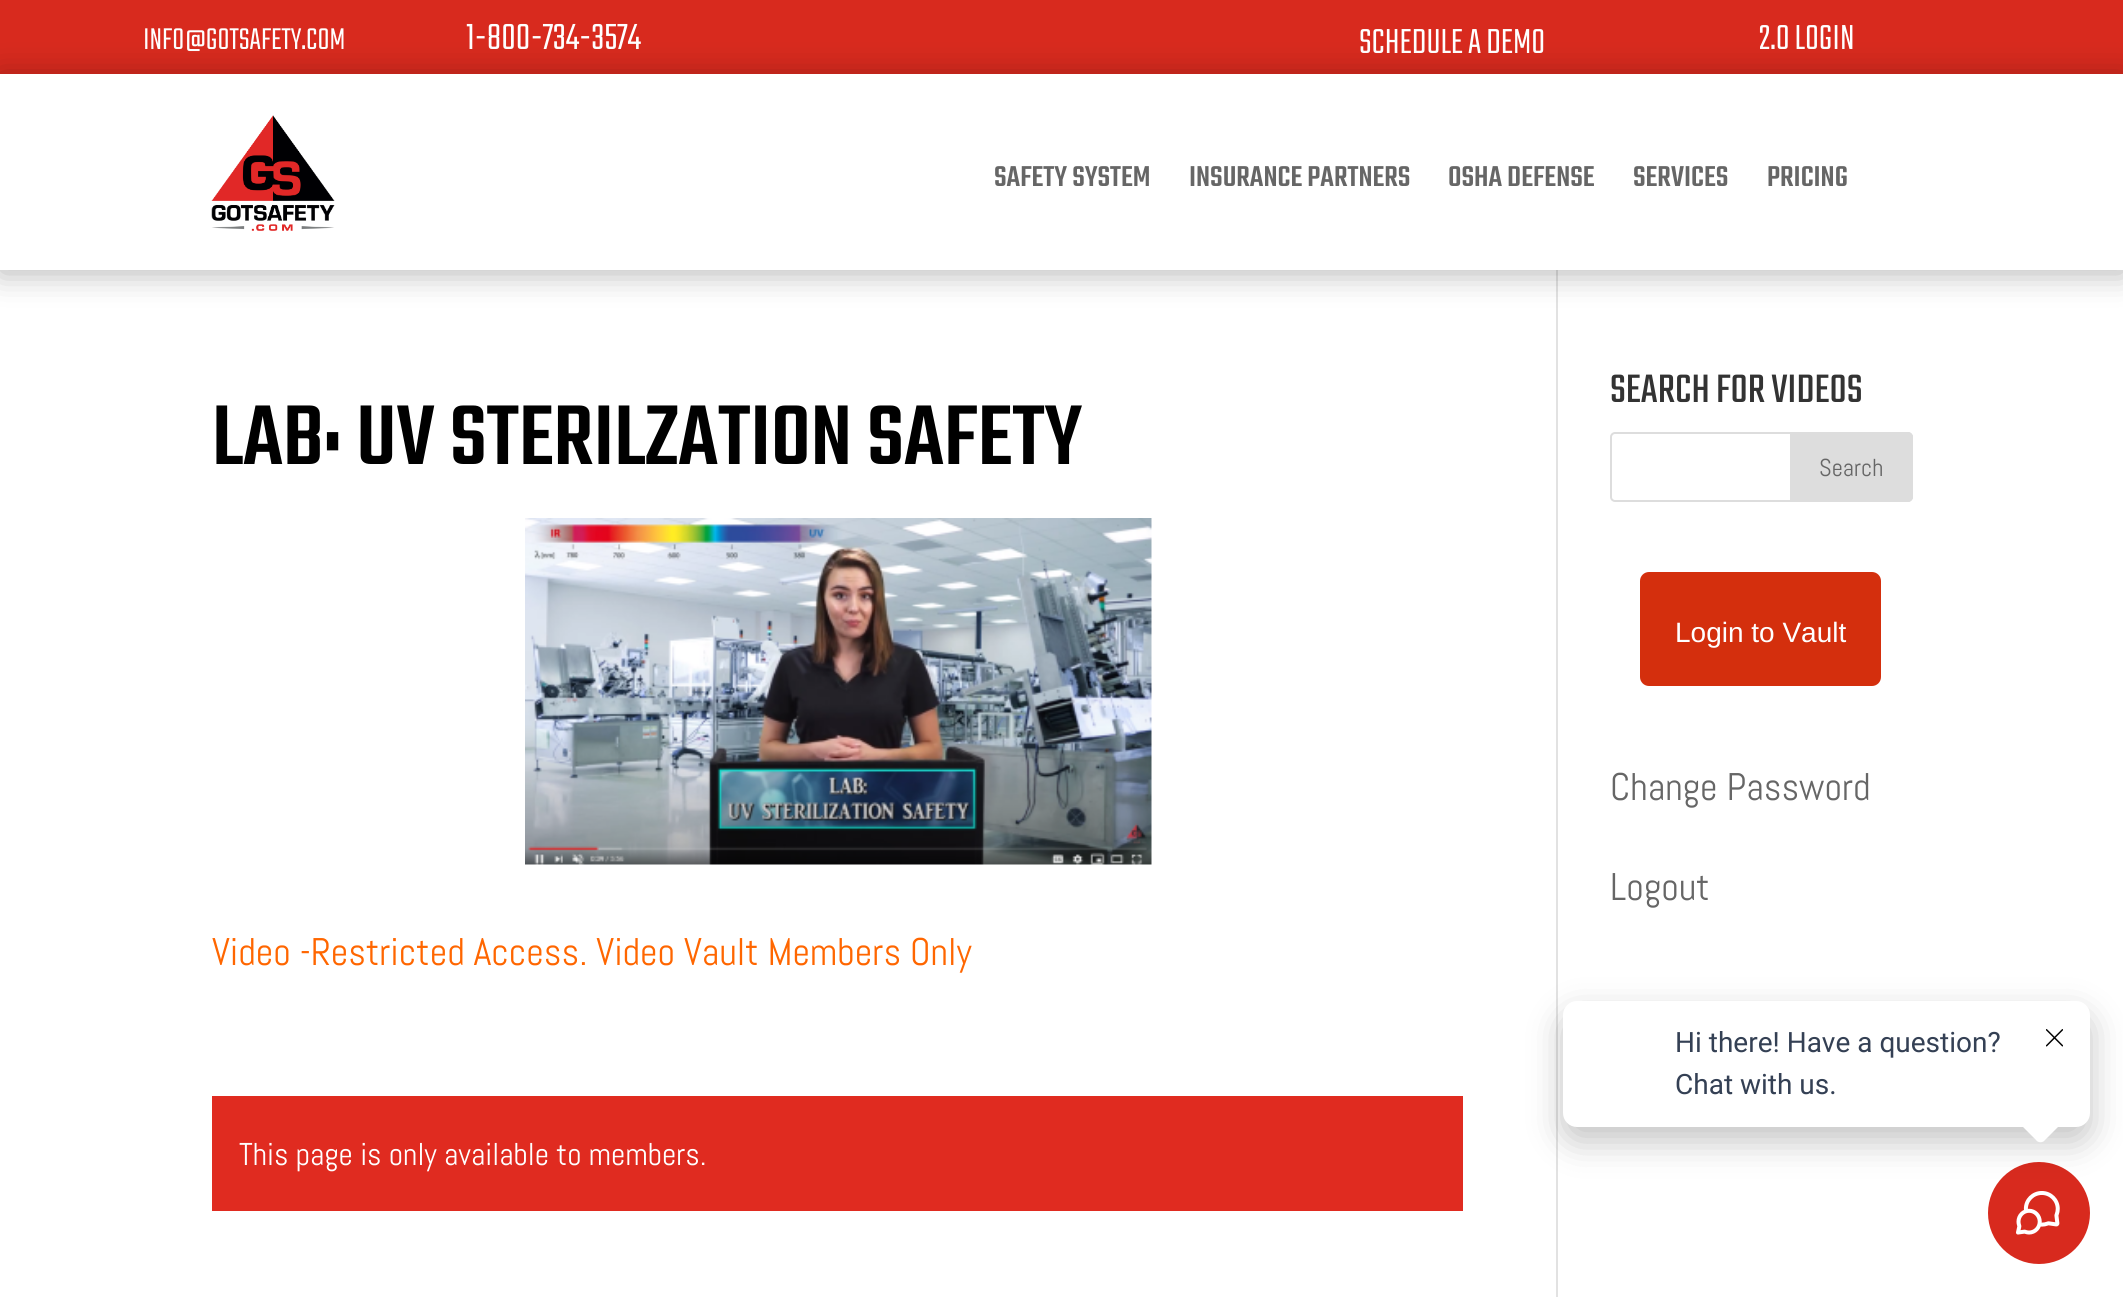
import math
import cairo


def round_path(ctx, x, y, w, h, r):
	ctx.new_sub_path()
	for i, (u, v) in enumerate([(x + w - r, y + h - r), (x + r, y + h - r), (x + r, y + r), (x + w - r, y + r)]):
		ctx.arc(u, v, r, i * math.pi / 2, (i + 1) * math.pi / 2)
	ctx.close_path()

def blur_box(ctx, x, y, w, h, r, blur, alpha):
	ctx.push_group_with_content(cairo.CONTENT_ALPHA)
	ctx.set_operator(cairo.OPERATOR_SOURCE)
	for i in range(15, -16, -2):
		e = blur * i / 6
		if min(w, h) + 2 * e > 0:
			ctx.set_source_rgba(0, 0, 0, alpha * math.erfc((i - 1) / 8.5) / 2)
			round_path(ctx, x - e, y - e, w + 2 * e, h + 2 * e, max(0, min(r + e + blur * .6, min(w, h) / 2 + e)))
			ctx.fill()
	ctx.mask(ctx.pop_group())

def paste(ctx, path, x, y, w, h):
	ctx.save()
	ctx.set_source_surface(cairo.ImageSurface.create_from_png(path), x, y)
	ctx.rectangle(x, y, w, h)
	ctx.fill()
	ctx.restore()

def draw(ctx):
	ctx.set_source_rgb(1, 1, 1)
	ctx.paint()
	ctx.set_source_rgb(0.847, 0.165, 0.118)
	ctx.rectangle(0, 0, 2123, 74)
	ctx.fill()
	ctx.select_font_face('Teko Light')
	ctx.set_font_size(33.25)
	ctx.set_source_rgb(1, 1, 1)
	ctx.move_to(143, 49)
	ctx.show_text('INFO@GOTSAFETY.COM')
	ctx.set_font_size(40.25)
	ctx.move_to(466, 49)
	ctx.show_text('1-800-734-3574')
	ctx.set_font_size(38.5)
	ctx.move_to(1359, 53)
	ctx.show_text('SCHEDULE A DEMO')
	ctx.move_to(1759, 49)
	ctx.show_text('2.0 LOGIN')
	ctx.set_source_rgb(0.886, 0.886, 0.886)
	ctx.rectangle(1556, 270, 2, 1027)
	ctx.fill()
	ctx.set_source_rgb(0, 0, 0)
	blur_box(ctx, 0, 77, 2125, 196, 0, 16, 0.3)
	ctx.set_source_rgb(1, 1, 1)
	ctx.rectangle(0, 74, 2123, 196)
	ctx.fill()
	paste(ctx, 'media/1.png', 211, 115, 124, 116)
	ctx.select_font_face('Teko Medium')
	ctx.set_font_size(31.5)
	ctx.set_source_rgb(0.4, 0.4, 0.4)
	for x, y, s in [
		(994, 186, 'SAFETY SYSTEM'),
		(1189, 186, 'INSURANCE PARTNERS'),
		(1448, 186, 'OSHA DEFENSE'),
		(1633, 186, 'SERVICES'),
		(1767, 186, 'PRICING'),
	]:
		ctx.move_to(x, y)
		ctx.show_text(s)
	ctx.set_font_size(92.75)
	ctx.set_source_rgb(0, 0, 0)
	ctx.move_to(212, 464)
	ctx.show_text('LAB: UV STERILZATION SAFETY')
	paste(ctx, 'media/2.png', 525, 518, 627, 347)
	ctx.select_font_face('Abel')
	ctx.set_font_size(38.5)
	ctx.set_source_rgb(1, 0.4, 0)
	ctx.move_to(212, 965)
	ctx.show_text('Video -Restricted Access. Video Vault Members Only')
	ctx.set_source_rgb(0.878, 0.169, 0.125)
	ctx.rectangle(212, 1096, 1251, 115)
	ctx.fill()
	ctx.set_font_size(31.5)
	ctx.set_source_rgb(1, 1, 1)
	ctx.move_to(239, 1165)
	ctx.show_text('This page is only available to members.')
	ctx.select_font_face('Teko')
	ctx.set_font_size(43.75)
	ctx.set_source_rgb(0.2, 0.2, 0.2)
	ctx.move_to(1610, 402)
	ctx.show_text('SEARCH FOR VIDEOS')
	round_path(ctx, 1611, 433, 301, 68, 4)
	ctx.set_source_rgb(0.867, 0.867, 0.867)
	ctx.stroke()
	ctx.new_path()
	ctx.move_to(1791, 433)
	ctx.line_to(1908, 433)
	ctx.curve_to(1910, 433, 1912, 435, 1912, 437)
	ctx.line_to(1912, 497)
	ctx.curve_to(1912, 499, 1910, 501, 1908, 501)
	ctx.line_to(1791, 501)
	ctx.close_path()
	ctx.fill_preserve()
	ctx.stroke()
	ctx.select_font_face('Abel')
	ctx.set_font_size(24.5)
	ctx.set_source_rgb(0.4, 0.4, 0.4)
	ctx.move_to(1819, 476)
	ctx.show_text('Search')
	ctx.set_source_rgb(0.831, 0.184, 0.051)
	round_path(ctx, 1640, 572, 241, 114, 9)
	ctx.fill()
	ctx.select_font_face('Liberation Sans')
	ctx.set_font_size(28)
	ctx.set_source_rgb(1, 1, 1)
	ctx.move_to(1675, 642)
	ctx.show_text('Login to Vault')
	ctx.select_font_face('Abel')
	ctx.set_font_size(38.5)
	ctx.set_source_rgb(0.4, 0.4, 0.4)
	ctx.move_to(1610, 800)
	ctx.show_text('Change Password')
	ctx.move_to(1610, 900)
	ctx.show_text('Logout')
	ctx.set_source_rgb(0.847, 0.165, 0.118)
	ctx.new_path()
	ctx.arc(2039, 1213, 51, 0, 2 * math.pi)
	ctx.fill()
	paste(ctx, 'media/4.png', 2016, 1191, 44, 44)
	ctx.set_source_rgb(0, 0, 0)
	blur_box(ctx, 1563, 1015, 527, 126, 14, 17.5, 0.24)
	ctx.set_source_rgb(1, 1, 1)
	round_path(ctx, 1563, 1001, 527, 126, 14)
	ctx.fill()
	ctx.select_font_face('Roboto')
	ctx.set_font_size(28)
	ctx.set_source_rgb(0.204, 0.251, 0.329)
	ctx.move_to(1675, 1052)
	ctx.show_text('Hi there! Have a question?')
	ctx.move_to(1675, 1094)
	ctx.show_text('Chat with us.')
	ctx.set_source_rgb(1, 1, 1)
	ctx.new_path()
	ctx.move_to(2045, 1100)
	ctx.line_to(2060, 1115)
	ctx.curve_to(2063, 1118, 2063, 1122, 2060, 1125)
	ctx.line_to(2045, 1140)
	ctx.curve_to(2043, 1143, 2038, 1143, 2036, 1140)
	ctx.line_to(2021, 1125)
	ctx.curve_to(2018, 1122, 2018, 1118, 2021, 1115)
	ctx.line_to(2036, 1100)
	ctx.curve_to(2038, 1097, 2043, 1097, 2045, 1100)
	ctx.close_path()
	ctx.fill()
	paste(ctx, 'media/3.png', 2046, 1029, 17, 18)


surface = cairo.ImageSurface(cairo.FORMAT_RGB24, 2123, 1297)
ctx = cairo.Context(surface)
options = cairo.FontOptions()
options.set_hint_metrics(cairo.HINT_METRICS_OFF)
options.set_hint_style(cairo.HINT_STYLE_NONE)
ctx.set_font_options(options)
ctx.set_miter_limit(4)
draw(ctx)
surface.write_to_png('image.png')
